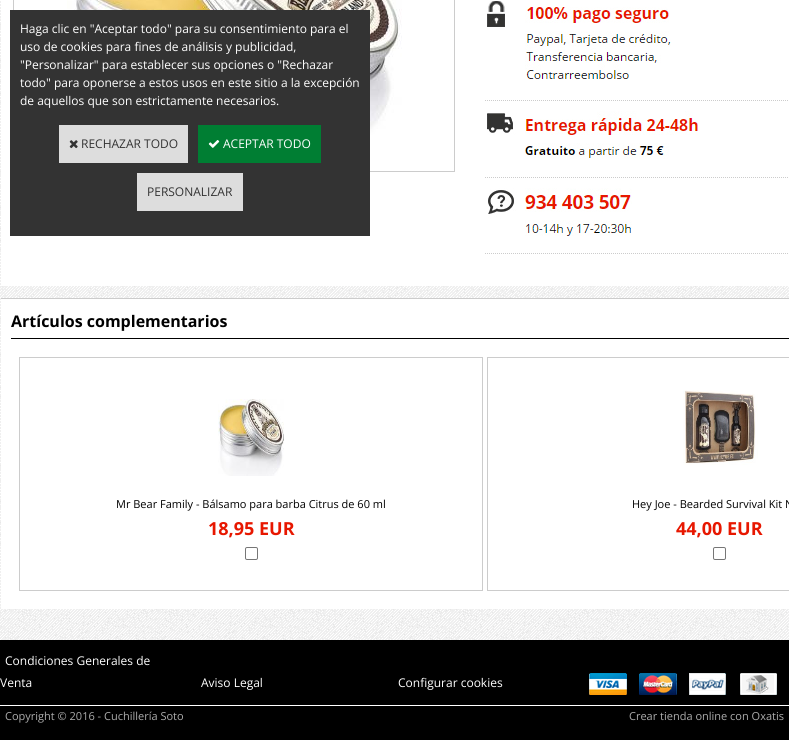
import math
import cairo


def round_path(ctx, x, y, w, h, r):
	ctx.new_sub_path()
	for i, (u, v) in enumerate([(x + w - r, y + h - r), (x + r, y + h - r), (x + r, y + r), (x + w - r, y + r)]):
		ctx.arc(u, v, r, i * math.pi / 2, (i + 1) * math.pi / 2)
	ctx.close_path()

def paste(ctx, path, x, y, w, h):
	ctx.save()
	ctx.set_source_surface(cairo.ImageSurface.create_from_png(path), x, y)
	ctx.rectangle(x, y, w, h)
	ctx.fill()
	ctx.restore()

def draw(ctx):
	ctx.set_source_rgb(1, 1, 1)
	ctx.paint()
	paste(ctx, 'media/1.png', 0, 0, 789, 640)
	ctx.set_source_rgb(1, 1, 1)
	ctx.rectangle(1, 0, 788, 286)
	ctx.fill()
	ctx.rectangle(13.5, -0.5, 441, 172)
	ctx.set_source_rgb(0.8, 0.8, 0.8)
	ctx.set_line_width(1)
	ctx.stroke()
	paste(ctx, 'media/4.png', 67, 0, 335, 151)
	ctx.set_source_rgb(0.2, 0.2, 0.2)
	ctx.rectangle(10, 10, 360, 226)
	ctx.fill()
	ctx.select_font_face('Open Sans')
	ctx.set_font_size(12)
	ctx.set_source_rgb(1, 1, 1)
	for x, y, s in [
		(20, 33, 'Haga clic en "Aceptar todo" para su consentimiento para el'),
		(20, 51, 'uso de cookies para fines de análisis y publicidad,'),
		(20, 69, '"Personalizar" para establecer sus opciones o "Rechazar'),
		(20, 87, 'todo" para oponerse a estos usos en este sitio a la excepción'),
		(20, 105, 'de aquellos que son estrictamente necesarios.'),
	]:
		ctx.move_to(x, y)
		ctx.show_text(s)
	ctx.set_source_rgb(0.867, 0.867, 0.867)
	ctx.rectangle(59, 125, 129, 38)
	ctx.fill()
	paste(ctx, 'media/2.png', 69, 140, 9, 9)
	ctx.set_source_rgb(0.2, 0.2, 0.2)
	ctx.move_to(81, 148)
	ctx.show_text('RECHAZAR TODO')
	ctx.set_source_rgb(0, 0.494, 0.2)
	ctx.rectangle(198, 125, 123, 38)
	ctx.fill()
	paste(ctx, 'media/3.png', 208, 140, 12, 8)
	ctx.set_source_rgb(1, 1, 1)
	ctx.move_to(223, 148)
	ctx.show_text('ACEPTAR TODO')
	ctx.set_source_rgb(0.867, 0.867, 0.867)
	ctx.rectangle(137, 173, 106, 38)
	ctx.fill()
	ctx.set_source_rgb(0.2, 0.2, 0.2)
	ctx.move_to(147, 196)
	ctx.show_text('PERSONALIZAR')
	ctx.new_path()
	ctx.move_to(485, 100.5)
	ctx.line_to(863, 100.5)
	ctx.set_source_rgb(0.8, 0.8, 0.8)
	ctx.set_dash([1, 1])
	ctx.stroke()
	paste(ctx, 'media/5.png', 487, 1, 184, 78)
	ctx.new_path()
	ctx.move_to(485, 177.5)
	ctx.line_to(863, 177.5)
	ctx.stroke()
	paste(ctx, 'media/6.png', 487, 111, 211, 48)
	ctx.new_path()
	ctx.move_to(485, 253.5)
	ctx.line_to(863, 253.5)
	ctx.stroke()
	paste(ctx, 'media/7.png', 488, 188, 144, 48)
	ctx.set_source_rgb(1, 1, 1)
	ctx.rectangle(1, 299, 788, 310)
	ctx.fill()
	ctx.set_source_rgb(0.8, 0.8, 0.8)
	ctx.rectangle(1, 298, 788, 1)
	ctx.fill()
	ctx.set_source_rgb(0, 0, 0)
	ctx.rectangle(11, 338, 778, 1)
	ctx.fill()
	ctx.select_font_face('Open Sans', cairo.FONT_SLANT_NORMAL, cairo.FONT_WEIGHT_BOLD)
	ctx.set_font_size(16)
	ctx.move_to(11, 327)
	ctx.show_text('Artículos complementarios')
	ctx.rectangle(19.5, 357.5, 463, 233)
	ctx.set_source_rgb(0.8, 0.8, 0.8)
	ctx.set_dash([])
	ctx.stroke()
	paste(ctx, 'media/8.png', 218, 399, 66, 77)
	ctx.select_font_face('Open Sans')
	ctx.set_font_size(11)
	ctx.set_source_rgb(0, 0, 0)
	ctx.move_to(116, 508)
	ctx.show_text('Mr Bear Family - Bálsamo para barba Citrus de 60 ml')
	ctx.select_font_face('Open Sans', cairo.FONT_SLANT_NORMAL, cairo.FONT_WEIGHT_BOLD)
	ctx.set_font_size(18)
	ctx.set_source_rgb(0.906, 0.09, 0)
	ctx.move_to(208, 535)
	ctx.show_text('18,95 EUR')
	round_path(ctx, 245.5, 547.5, 12, 12, 1.5)
	ctx.set_source_rgb(0.463, 0.463, 0.463)
	ctx.stroke()
	ctx.rectangle(487.5, 357.5, 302, 233)
	ctx.set_source_rgb(0.8, 0.8, 0.8)
	ctx.stroke()
	paste(ctx, 'media/9.png', 683, 390, 75, 75)
	ctx.select_font_face('Open Sans')
	ctx.set_font_size(11)
	ctx.set_source_rgb(0, 0, 0)
	ctx.move_to(632, 508)
	ctx.show_text('Hey Joe - Bearded Survival Kit N')
	ctx.select_font_face('Open Sans', cairo.FONT_SLANT_NORMAL, cairo.FONT_WEIGHT_BOLD)
	ctx.set_font_size(18)
	ctx.set_source_rgb(0.906, 0.09, 0)
	ctx.move_to(676, 535)
	ctx.show_text('44,00 EUR')
	round_path(ctx, 713.5, 547.5, 12, 12, 1.5)
	ctx.set_source_rgb(0.463, 0.463, 0.463)
	ctx.stroke()
	ctx.set_source_rgb(0, 0, 0)
	ctx.rectangle(0, 640, 789, 100)
	ctx.fill()
	ctx.set_source_rgb(1, 1, 1)
	ctx.rectangle(0, 705, 789, 1)
	ctx.fill()
	ctx.select_font_face('Open Sans')
	ctx.set_font_size(12)
	for x, y, s in [
		(5, 665, 'Condiciones Generales de'),
		(0, 687, 'Venta'),
		(201, 687, 'Aviso Legal'),
		(398, 687, 'Configurar cookies'),
	]:
		ctx.move_to(x, y)
		ctx.show_text(s)
	paste(ctx, 'media/10.png', 589, 673, 188, 22)
	ctx.set_font_size(11)
	ctx.set_source_rgb(0.675, 0.675, 0.675)
	ctx.move_to(5, 720)
	ctx.show_text('Copyright © 2016 - Cuchillería Soto')
	ctx.move_to(629, 720)
	ctx.show_text('Crear tienda online con Oxatis')


surface = cairo.ImageSurface(cairo.FORMAT_RGB24, 789, 740)
ctx = cairo.Context(surface)
options = cairo.FontOptions()
options.set_hint_metrics(cairo.HINT_METRICS_OFF)
options.set_hint_style(cairo.HINT_STYLE_NONE)
ctx.set_font_options(options)
ctx.set_miter_limit(4)
draw(ctx)
surface.write_to_png('image.png')
